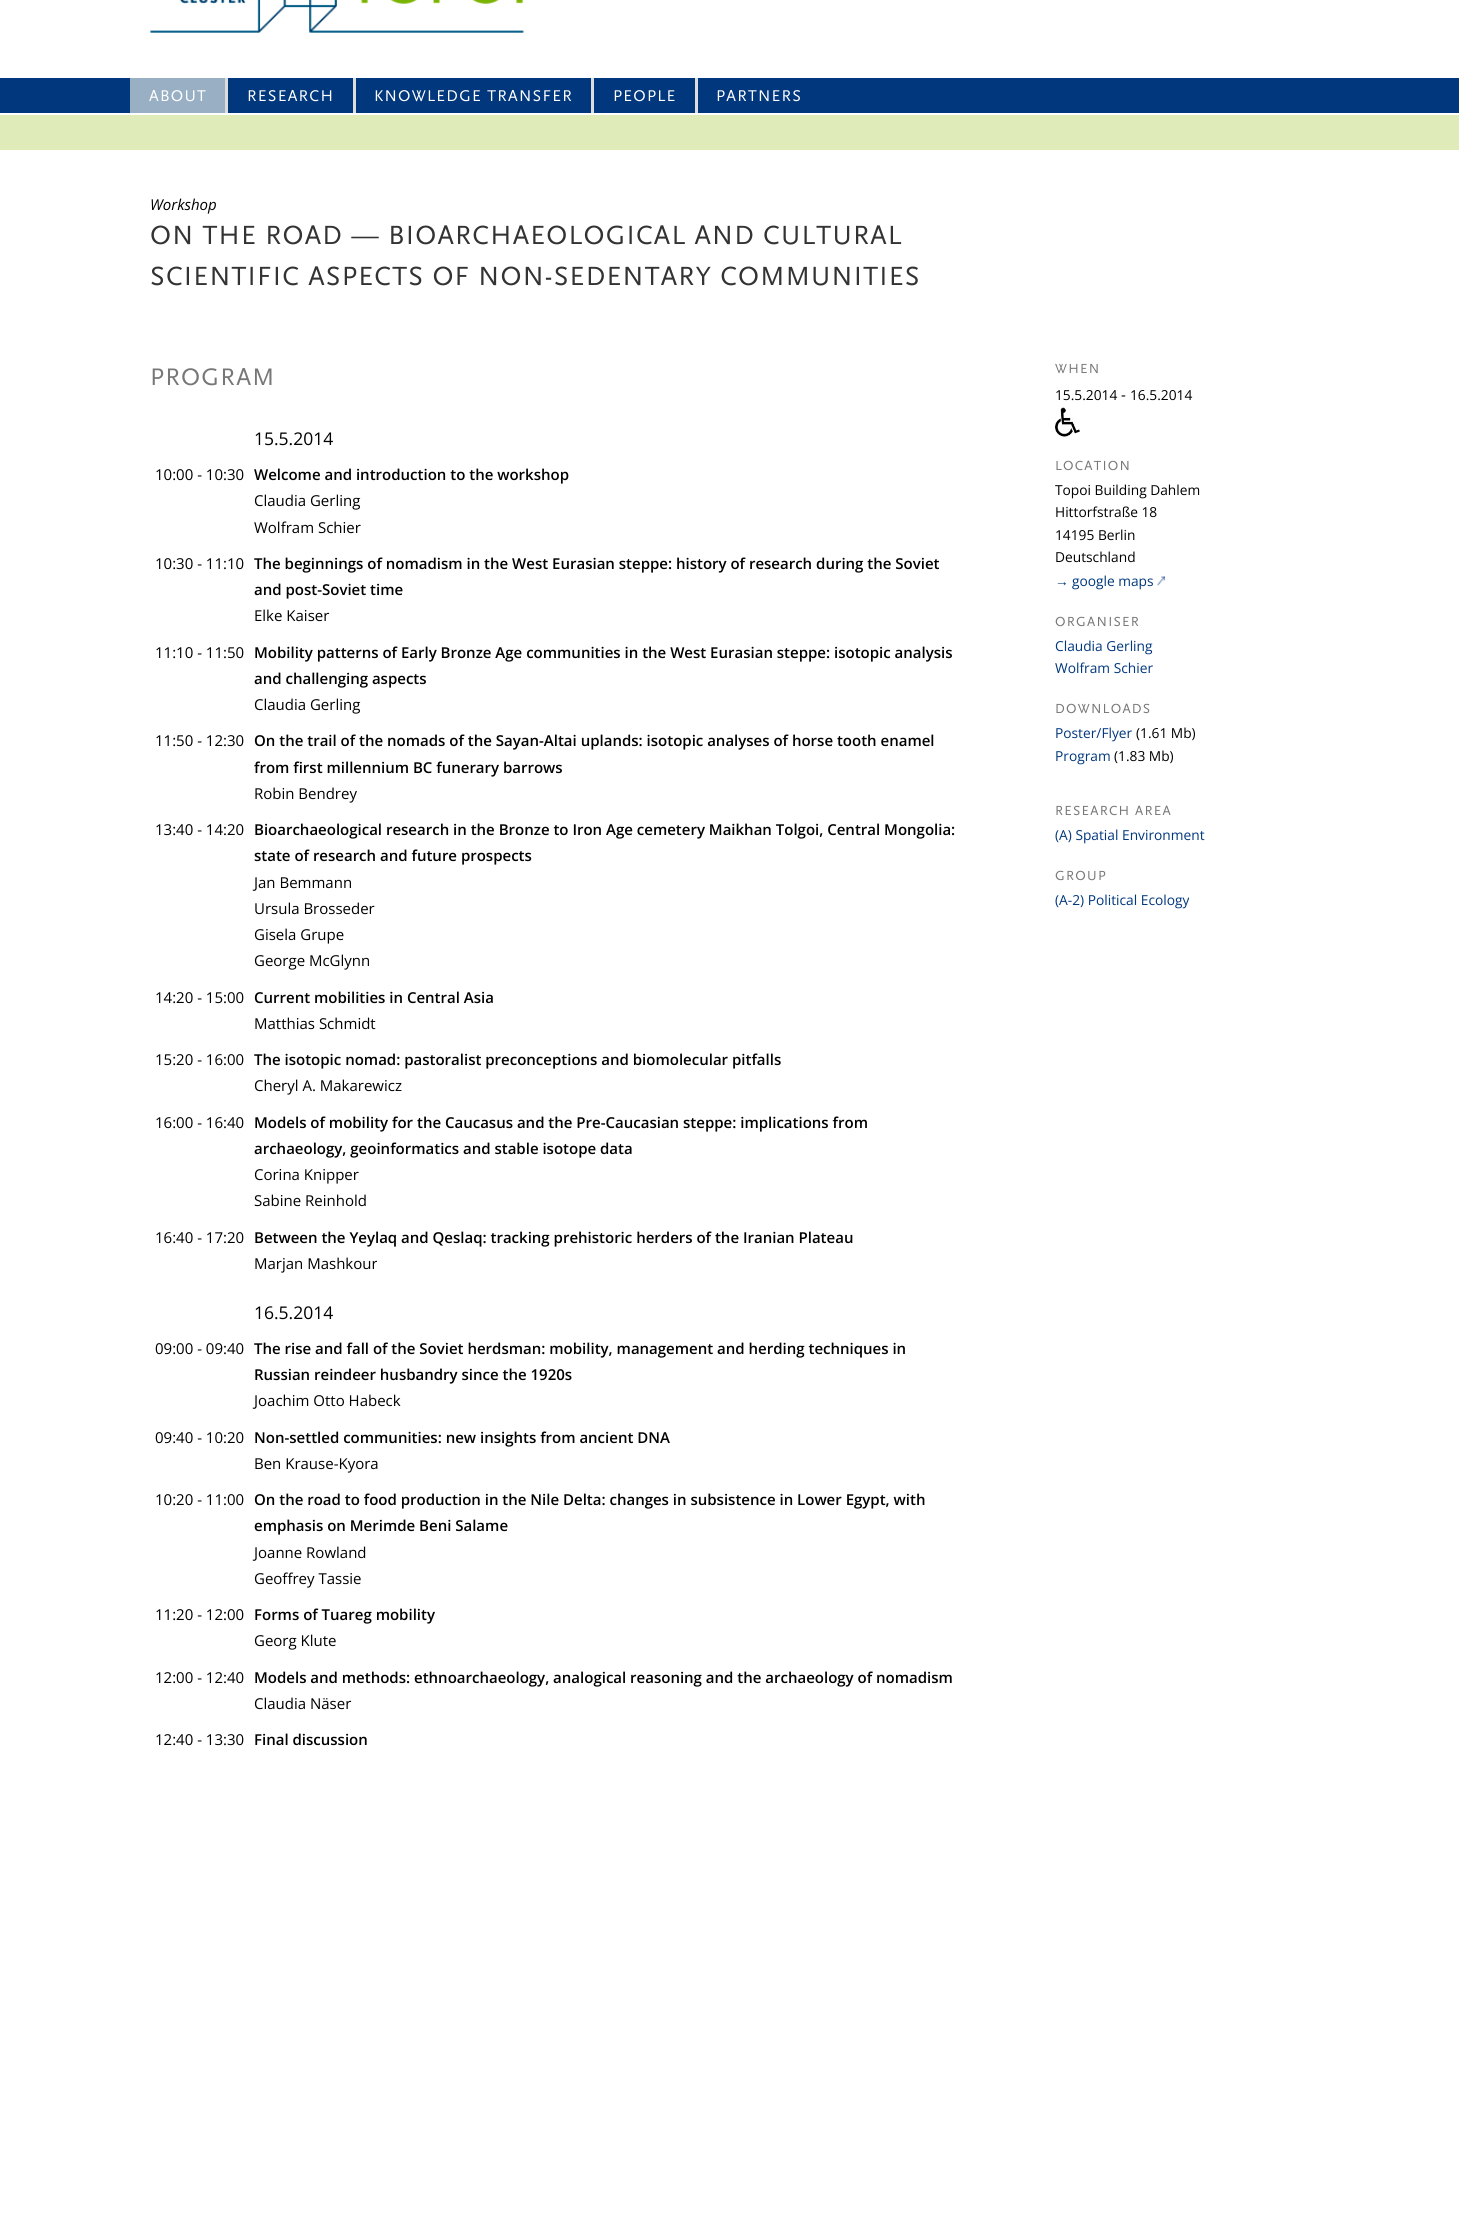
import math
import cairo


def write_spaced(ctx, x, y, s, letter, word):
	ctx.move_to(x, y)
	for ch in s:
		ctx.show_text(ch)
		ctx.rel_move_to(letter + word * (ch == ' '), 0)

def paste(ctx, path, x, y, w, h):
	ctx.save()
	ctx.set_source_surface(cairo.ImageSurface.create_from_png(path), x, y)
	ctx.rectangle(x, y, w, h)
	ctx.fill()
	ctx.restore()

def draw(ctx):
	ctx.set_source_rgb(1, 1, 1)
	ctx.paint()
	paste(ctx, 'media/1.png', 150, 0, 374, 33)
	ctx.set_source_rgb(0, 0.216, 0.49)
	ctx.rectangle(0, 78, 1459, 35)
	ctx.fill()
	ctx.set_source_rgb(0.6, 0.686, 0.769)
	ctx.rectangle(130, 78, 95, 35)
	ctx.fill()
	ctx.select_font_face('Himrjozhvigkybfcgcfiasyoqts')
	ctx.set_font_size(16.25)
	ctx.set_source_rgb(1, 1, 1)
	write_spaced(ctx, 149, 101, 'ABOUT', 1.25, 0)
	ctx.set_source_rgb(0.867, 0.867, 0.867)
	ctx.rectangle(225, 78, 3, 35)
	ctx.fill()
	ctx.set_source_rgb(1, 1, 1)
	write_spaced(ctx, 247, 101, 'RESEARCH', 1.25, 0)
	ctx.set_source_rgb(0.867, 0.867, 0.867)
	ctx.rectangle(353, 78, 3, 35)
	ctx.fill()
	ctx.set_source_rgb(1, 1, 1)
	write_spaced(ctx, 374, 101, 'KNOWLEDGE TRANSFER', 1.25, 0)
	ctx.set_source_rgb(0.867, 0.867, 0.867)
	ctx.rectangle(591, 78, 3, 35)
	ctx.fill()
	ctx.set_source_rgb(1, 1, 1)
	write_spaced(ctx, 613, 101, 'PEOPLE', 1.25, 0)
	ctx.set_source_rgb(0.867, 0.867, 0.867)
	ctx.rectangle(695, 78, 3, 35)
	ctx.fill()
	ctx.set_source_rgb(1, 1, 1)
	write_spaced(ctx, 716, 101, 'PARTNERS', 1.25, 0)
	ctx.set_source_rgb(0.875, 0.925, 0.725)
	ctx.rectangle(0, 115, 1459, 35)
	ctx.fill()
	ctx.select_font_face('Open Sans', cairo.FONT_SLANT_ITALIC)
	ctx.set_font_size(15)
	ctx.set_source_rgb(0, 0, 0)
	ctx.move_to(150, 210)
	ctx.show_text('Workshop')
	ctx.select_font_face('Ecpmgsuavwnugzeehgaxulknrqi')
	ctx.set_font_size(27.5)
	ctx.set_source_rgb(0.2, 0.2, 0.2)
	write_spaced(ctx, 150, 244, 'ON THE ROAD — BIOARCHAEOLOGICAL AND CULTURAL', 1.25, 0)
	write_spaced(ctx, 150, 285, 'SCIENTIFIC ASPECTS OF NON-SEDENTARY COMMUNITIES', 1.25, 0)
	ctx.set_font_size(25)
	ctx.set_source_rgb(0.467, 0.467, 0.467)
	write_spaced(ctx, 150, 385, 'PROGRAM', 1.25, 0)
	ctx.select_font_face('Open Sans')
	ctx.set_font_size(17.5)
	ctx.set_source_rgb(0, 0, 0)
	ctx.move_to(254, 445)
	ctx.show_text('15.5.2014')
	ctx.set_font_size(15)
	ctx.move_to(155, 480)
	ctx.show_text('10:00 - 10:30')
	ctx.select_font_face('Open Sans SemiBold')
	ctx.move_to(254, 480)
	ctx.show_text('Welcome and introduction to the workshop')
	ctx.select_font_face('Open Sans')
	for x, y, s in [
		(254, 506, 'Claudia Gerling'),
		(254, 533, 'Wolfram Schier'),
		(155, 569, '10:30 - 11:10'),
	]:
		ctx.move_to(x, y)
		ctx.show_text(s)
	ctx.select_font_face('Open Sans SemiBold')
	ctx.move_to(254, 569)
	ctx.show_text('The beginnings of nomadism in the West Eurasian steppe: history of research during the Soviet')
	ctx.move_to(254, 595)
	ctx.show_text('and post-Soviet time')
	ctx.select_font_face('Open Sans')
	ctx.move_to(254, 621)
	ctx.show_text('Elke Kaiser')
	ctx.move_to(155, 658)
	ctx.show_text('11:10 - 11:50')
	ctx.select_font_face('Open Sans SemiBold')
	ctx.move_to(254, 658)
	ctx.show_text('Mobility patterns of Early Bronze Age communities in the West Eurasian steppe: isotopic analysis')
	ctx.move_to(254, 684)
	ctx.show_text('and challenging aspects')
	ctx.select_font_face('Open Sans')
	ctx.move_to(254, 710)
	ctx.show_text('Claudia Gerling')
	ctx.move_to(155, 746)
	ctx.show_text('11:50 - 12:30')
	ctx.select_font_face('Open Sans SemiBold')
	ctx.move_to(254, 746)
	ctx.show_text('On the trail of the nomads of the Sayan-Altai uplands: isotopic analyses of horse tooth enamel')
	ctx.move_to(254, 773)
	ctx.show_text('from first millennium BC funerary barrows')
	ctx.select_font_face('Open Sans')
	ctx.move_to(254, 799)
	ctx.show_text('Robin Bendrey')
	ctx.move_to(155, 835)
	ctx.show_text('13:40 - 14:20')
	ctx.select_font_face('Open Sans SemiBold')
	ctx.move_to(254, 835)
	ctx.show_text('Bioarchaeological research in the Bronze to Iron Age cemetery Maikhan Tolgoi, Central Mongolia:')
	ctx.move_to(254, 861)
	ctx.show_text('state of research and future prospects')
	ctx.select_font_face('Open Sans')
	for x, y, s in [
		(254, 888, 'Jan Bemmann'),
		(254, 914, 'Ursula Brosseder'),
		(254, 940, 'Gisela Grupe'),
		(254, 966, 'George McGlynn'),
		(155, 1003, '14:20 - 15:00'),
	]:
		ctx.move_to(x, y)
		ctx.show_text(s)
	ctx.select_font_face('Open Sans SemiBold')
	ctx.move_to(254, 1003)
	ctx.show_text('Current mobilities in Central Asia')
	ctx.select_font_face('Open Sans')
	ctx.move_to(254, 1029)
	ctx.show_text('Matthias Schmidt')
	ctx.move_to(155, 1065)
	ctx.show_text('15:20 - 16:00')
	ctx.select_font_face('Open Sans SemiBold')
	ctx.move_to(254, 1065)
	ctx.show_text('The isotopic nomad: pastoralist preconceptions and biomolecular pitfalls')
	ctx.select_font_face('Open Sans')
	ctx.move_to(254, 1091)
	ctx.show_text('Cheryl A. Makarewicz')
	ctx.move_to(155, 1128)
	ctx.show_text('16:00 - 16:40')
	ctx.select_font_face('Open Sans SemiBold')
	ctx.move_to(254, 1128)
	ctx.show_text('Models of mobility for the Caucasus and the Pre-Caucasian steppe: implications from')
	ctx.move_to(254, 1154)
	ctx.show_text('archaeology, geoinformatics and stable isotope data')
	ctx.select_font_face('Open Sans')
	for x, y, s in [
		(254, 1180, 'Corina Knipper'),
		(254, 1206, 'Sabine Reinhold'),
		(155, 1243, '16:40 - 17:20'),
	]:
		ctx.move_to(x, y)
		ctx.show_text(s)
	ctx.select_font_face('Open Sans SemiBold')
	ctx.move_to(254, 1243)
	ctx.show_text('Between the Yeylaq and Qeslaq: tracking prehistoric herders of the Iranian Plateau')
	ctx.select_font_face('Open Sans')
	ctx.move_to(254, 1269)
	ctx.show_text('Marjan Mashkour')
	ctx.set_font_size(17.5)
	ctx.move_to(254, 1319)
	ctx.show_text('16.5.2014')
	ctx.set_font_size(15)
	ctx.move_to(155, 1354)
	ctx.show_text('09:00 - 09:40')
	ctx.select_font_face('Open Sans SemiBold')
	ctx.move_to(254, 1354)
	ctx.show_text('The rise and fall of the Soviet herdsman: mobility, management and herding techniques in')
	ctx.move_to(254, 1380)
	ctx.show_text('Russian reindeer husbandry since the 1920s')
	ctx.select_font_face('Open Sans')
	ctx.move_to(254, 1406)
	ctx.show_text('Joachim Otto Habeck')
	ctx.move_to(155, 1443)
	ctx.show_text('09:40 - 10:20')
	ctx.select_font_face('Open Sans SemiBold')
	ctx.move_to(254, 1443)
	ctx.show_text('Non-settled communities: new insights from ancient DNA')
	ctx.select_font_face('Open Sans')
	ctx.move_to(254, 1469)
	ctx.show_text('Ben Krause-Kyora')
	ctx.move_to(155, 1505)
	ctx.show_text('10:20 - 11:00')
	ctx.select_font_face('Open Sans SemiBold')
	ctx.move_to(254, 1505)
	ctx.show_text('On the road to food production in the Nile Delta: changes in subsistence in Lower Egypt, with')
	ctx.move_to(254, 1531)
	ctx.show_text('emphasis on Merimde Beni Salame')
	ctx.select_font_face('Open Sans')
	for x, y, s in [
		(254, 1558, 'Joanne Rowland'),
		(254, 1584, 'Geoffrey Tassie'),
		(155, 1620, '11:20 - 12:00'),
	]:
		ctx.move_to(x, y)
		ctx.show_text(s)
	ctx.select_font_face('Open Sans SemiBold')
	ctx.move_to(254, 1620)
	ctx.show_text('Forms of Tuareg mobility')
	ctx.select_font_face('Open Sans')
	ctx.move_to(254, 1646)
	ctx.show_text('Georg Klute')
	ctx.move_to(155, 1683)
	ctx.show_text('12:00 - 12:40')
	ctx.select_font_face('Open Sans SemiBold')
	ctx.move_to(254, 1683)
	ctx.show_text('Models and methods: ethnoarchaeology, analogical reasoning and the archaeology of nomadism')
	ctx.select_font_face('Open Sans')
	ctx.move_to(254, 1709)
	ctx.show_text('Claudia Näser')
	ctx.move_to(155, 1745)
	ctx.show_text('12:40 - 13:30')
	ctx.select_font_face('Open Sans SemiBold')
	ctx.move_to(254, 1745)
	ctx.show_text('Final discussion')
	ctx.select_font_face('Ecpmgsuavwnugzeehgaxulknrqi')
	ctx.set_font_size(13.75)
	ctx.set_source_rgb(0.467, 0.467, 0.467)
	write_spaced(ctx, 1055, 373, 'WHEN', 1.25, 0)
	ctx.select_font_face('Open Sans')
	ctx.set_source_rgb(0, 0, 0)
	ctx.move_to(1055, 400)
	ctx.show_text('15.5.2014')
	ctx.set_font_size(15)
	ctx.move_to(1121, 400)
	ctx.show_text('-')
	ctx.set_font_size(13.75)
	ctx.move_to(1130, 400)
	ctx.show_text('16.5.2014')
	paste(ctx, 'media/2.png', 1055, 407, 25, 30)
	ctx.select_font_face('Ecpmgsuavwnugzeehgaxulknrqi')
	ctx.set_source_rgb(0.467, 0.467, 0.467)
	write_spaced(ctx, 1055, 470, 'LOCATION', 1.25, 0)
	ctx.select_font_face('Open Sans')
	ctx.set_source_rgb(0, 0, 0)
	for x, y, s in [
		(1055, 495, 'Topoi Building Dahlem'),
		(1055, 517, 'Hittorfstraße 18'),
		(1055, 540, '14195 Berlin'),
		(1055, 562, 'Deutschland'),
	]:
		ctx.move_to(x, y)
		ctx.show_text(s)
	ctx.select_font_face('Liberation Sans')
	ctx.set_source_rgb(0, 0.216, 0.49)
	ctx.move_to(1055, 586)
	ctx.show_text('→')
	ctx.select_font_face('Open Sans')
	ctx.move_to(1072, 586)
	ctx.show_text('google maps')
	paste(ctx, 'media/3.png', 1157, 576, 8, 10)
	ctx.select_font_face('Ecpmgsuavwnugzeehgaxulknrqi')
	ctx.set_source_rgb(0.467, 0.467, 0.467)
	write_spaced(ctx, 1055, 626, 'ORGANISER', 1.25, 0)
	ctx.select_font_face('Open Sans')
	ctx.set_source_rgb(0, 0.216, 0.49)
	ctx.move_to(1055, 651)
	ctx.show_text('Claudia Gerling')
	ctx.move_to(1055, 673)
	ctx.show_text('Wolfram Schier')
	ctx.select_font_face('Ecpmgsuavwnugzeehgaxulknrqi')
	ctx.set_source_rgb(0.467, 0.467, 0.467)
	write_spaced(ctx, 1055, 713, 'DOWNLOADS', 1.25, 0)
	ctx.select_font_face('Open Sans')
	ctx.set_source_rgb(0, 0.216, 0.49)
	ctx.move_to(1055, 738)
	ctx.show_text('Poster/Flyer')
	ctx.set_source_rgb(0, 0, 0)
	ctx.move_to(1136, 738)
	ctx.show_text('(1.61 Mb)')
	ctx.set_source_rgb(0, 0.216, 0.49)
	ctx.move_to(1055, 761)
	ctx.show_text('Program')
	ctx.set_source_rgb(0, 0, 0)
	ctx.move_to(1114, 761)
	ctx.show_text('(1.83 Mb)')
	ctx.select_font_face('Ecpmgsuavwnugzeehgaxulknrqi')
	ctx.set_source_rgb(0.467, 0.467, 0.467)
	write_spaced(ctx, 1055, 815, 'RESEARCH AREA', 1.25, 0)
	ctx.select_font_face('Open Sans')
	ctx.set_source_rgb(0, 0.216, 0.49)
	ctx.move_to(1055, 840)
	ctx.show_text('(A) Spatial Environment')
	ctx.select_font_face('Ecpmgsuavwnugzeehgaxulknrqi')
	ctx.set_source_rgb(0.467, 0.467, 0.467)
	write_spaced(ctx, 1055, 880, 'GROUP', 1.25, 0)
	ctx.select_font_face('Open Sans')
	ctx.set_source_rgb(0, 0.216, 0.49)
	ctx.move_to(1055, 905)
	ctx.show_text('(A-2) Political Ecology')


surface = cairo.ImageSurface(cairo.FORMAT_RGB24, 1459, 2231)
ctx = cairo.Context(surface)
options = cairo.FontOptions()
options.set_hint_metrics(cairo.HINT_METRICS_OFF)
options.set_hint_style(cairo.HINT_STYLE_NONE)
ctx.set_font_options(options)
ctx.set_miter_limit(4)
draw(ctx)
surface.write_to_png('image.png')
